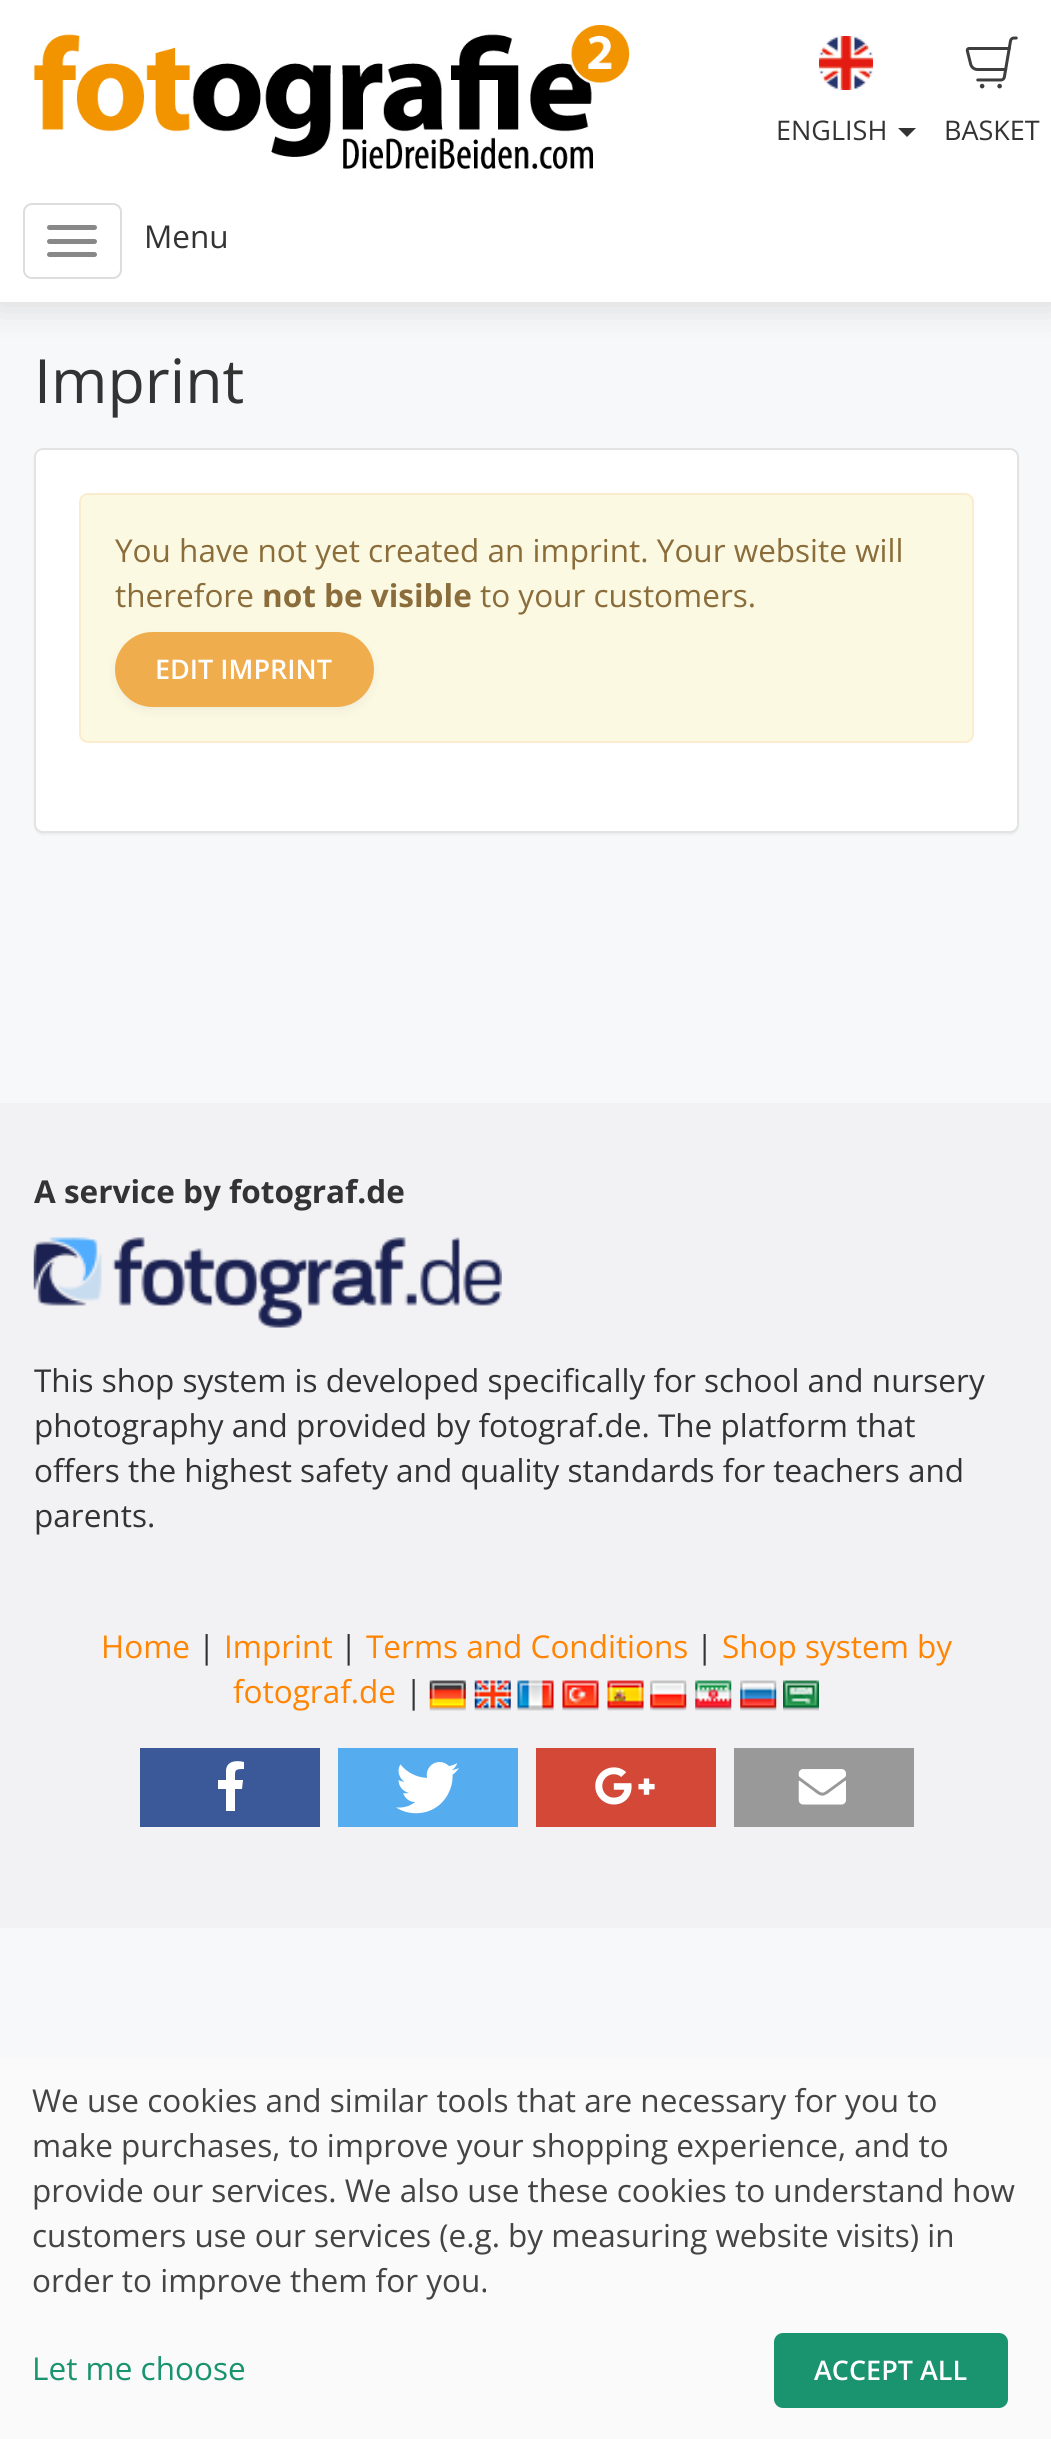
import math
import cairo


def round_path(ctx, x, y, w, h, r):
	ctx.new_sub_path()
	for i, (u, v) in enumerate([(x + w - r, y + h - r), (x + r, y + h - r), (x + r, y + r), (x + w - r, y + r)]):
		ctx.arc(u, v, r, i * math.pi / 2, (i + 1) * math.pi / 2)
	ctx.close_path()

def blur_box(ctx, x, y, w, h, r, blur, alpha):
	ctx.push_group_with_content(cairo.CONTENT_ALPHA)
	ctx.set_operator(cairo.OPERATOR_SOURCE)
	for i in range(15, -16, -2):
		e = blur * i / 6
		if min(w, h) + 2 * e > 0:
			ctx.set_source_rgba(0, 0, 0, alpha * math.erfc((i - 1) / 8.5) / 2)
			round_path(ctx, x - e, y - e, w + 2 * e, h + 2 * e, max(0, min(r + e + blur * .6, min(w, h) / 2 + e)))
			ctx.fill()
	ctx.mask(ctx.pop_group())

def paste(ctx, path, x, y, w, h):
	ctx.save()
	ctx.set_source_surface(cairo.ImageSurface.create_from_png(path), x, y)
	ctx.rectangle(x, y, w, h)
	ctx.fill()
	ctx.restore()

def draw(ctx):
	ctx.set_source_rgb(0.965, 0.969, 0.973)
	ctx.paint()
	ctx.set_source_rgb(0, 0, 0)
	blur_box(ctx, -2, 178, 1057, 126, 0, 19, 0.14)
	ctx.set_source_rgb(1, 1, 1)
	ctx.rectangle(0, 0, 1051, 302)
	ctx.fill()
	paste(ctx, 'media/1.png', 33, 25, 597, 144)
	paste(ctx, 'media/2.png', 819, 36, 54, 54)
	ctx.select_font_face('Open Sans')
	ctx.set_font_size(27)
	ctx.set_source_rgb(0.2, 0.2, 0.2)
	ctx.move_to(776, 140)
	ctx.show_text('ENGLISH')
	ctx.new_path()
	ctx.move_to(898, 128)
	ctx.line_to(916, 128)
	ctx.line_to(907, 137)
	ctx.close_path()
	ctx.fill()
	paste(ctx, 'media/3.png', 965, 36, 53, 53)
	ctx.move_to(944, 140)
	ctx.show_text('BASKET')
	round_path(ctx, 24, 204, 97, 74, 8)
	ctx.set_source_rgb(0.867, 0.867, 0.867)
	ctx.stroke()
	ctx.set_source_rgb(0.533, 0.533, 0.533)
	round_path(ctx, 47, 225, 50, 5, 2.5)
	ctx.fill()
	round_path(ctx, 47, 239, 50, 5, 2.5)
	ctx.fill()
	round_path(ctx, 47, 252, 50, 5, 2.5)
	ctx.fill()
	ctx.set_font_size(31.5)
	ctx.set_source_rgb(0.2, 0.2, 0.2)
	ctx.move_to(144, 248)
	ctx.show_text('Menu')
	ctx.set_font_size(61)
	ctx.move_to(34, 403)
	ctx.show_text('Imprint')
	ctx.set_source_rgb(0, 0, 0)
	blur_box(ctx, 34, 450, 985, 385, 9, 1, 0.05)
	ctx.set_source_rgb(1, 1, 1)
	round_path(ctx, 35, 449, 983, 383, 8)
	ctx.fill_preserve()
	ctx.set_source_rgb(0.89, 0.89, 0.89)
	ctx.stroke()
	ctx.set_source_rgb(0.988, 0.973, 0.89)
	round_path(ctx, 80, 494, 893, 248, 8)
	ctx.fill_preserve()
	ctx.set_source_rgb(0.98, 0.922, 0.8)
	ctx.stroke()
	ctx.set_font_size(31.5)
	ctx.set_source_rgb(0.541, 0.427, 0.231)
	ctx.move_to(115, 562)
	ctx.show_text('You have not yet created an imprint. Your website will')
	ctx.move_to(115, 607)
	ctx.show_text('therefore')
	ctx.select_font_face('Open Sans', cairo.FONT_SLANT_NORMAL, cairo.FONT_WEIGHT_BOLD)
	ctx.move_to(262, 607)
	ctx.show_text('not be visible')
	ctx.select_font_face('Open Sans')
	ctx.move_to(480, 607)
	ctx.show_text('to your customers.')
	ctx.set_source_rgb(0, 0, 0)
	blur_box(ctx, 115, 637, 259, 74, 37, 4.5, 0.05)
	ctx.set_source_rgb(0.941, 0.678, 0.306)
	round_path(ctx, 115, 632, 259, 75, 37.5)
	ctx.fill()
	ctx.select_font_face('Open Sans SemiBold')
	ctx.set_font_size(27)
	ctx.set_source_rgb(1, 1, 1)
	ctx.move_to(155, 679)
	ctx.show_text('EDIT IMPRINT')
	ctx.set_source_rgb(0.949, 0.945, 0.957)
	ctx.rectangle(0, 1103, 1051, 825)
	ctx.fill()
	ctx.select_font_face('Open Sans', cairo.FONT_SLANT_NORMAL, cairo.FONT_WEIGHT_BOLD)
	ctx.set_font_size(31.5)
	ctx.set_source_rgb(0.2, 0.2, 0.2)
	ctx.move_to(34, 1203)
	ctx.show_text('A service by fotograf.de')
	paste(ctx, 'media/4.png', 33, 1237, 469, 91)
	ctx.select_font_face('Open Sans')
	for x, y, s in [
		(34, 1392, 'This shop system is developed specifically for school and nursery'),
		(34, 1437, 'photography and provided by fotograf.de. The platform that'),
		(34, 1482, 'offers the highest safety and quality standards for teachers and'),
		(34, 1527, 'parents.'),
	]:
		ctx.move_to(x, y)
		ctx.show_text(s)
	ctx.set_source_rgb(1, 0.522, 0.012)
	ctx.move_to(101, 1658)
	ctx.show_text('Home')
	ctx.set_source_rgb(0.2, 0.2, 0.2)
	ctx.move_to(198, 1658)
	ctx.show_text('|')
	ctx.set_source_rgb(1, 0.522, 0.012)
	ctx.move_to(224, 1658)
	ctx.show_text('Imprint')
	ctx.set_source_rgb(0.2, 0.2, 0.2)
	ctx.move_to(340, 1658)
	ctx.show_text('|')
	ctx.set_source_rgb(1, 0.522, 0.012)
	ctx.move_to(366, 1658)
	ctx.show_text('Terms and Conditions')
	ctx.set_source_rgb(0.2, 0.2, 0.2)
	ctx.move_to(696, 1658)
	ctx.show_text('|')
	ctx.set_source_rgb(1, 0.522, 0.012)
	ctx.move_to(722, 1658)
	ctx.show_text('Shop system by')
	ctx.move_to(233, 1703)
	ctx.show_text('fotograf.de')
	ctx.set_source_rgb(0.2, 0.2, 0.2)
	ctx.move_to(405, 1703)
	ctx.show_text('|')
	paste(ctx, 'media/5.png', 429, 1680, 37, 31)
	paste(ctx, 'media/6.png', 474, 1680, 37, 31)
	paste(ctx, 'media/7.png', 517, 1680, 37, 31)
	paste(ctx, 'media/8.png', 562, 1680, 37, 31)
	paste(ctx, 'media/9.png', 607, 1680, 37, 31)
	paste(ctx, 'media/10.png', 650, 1680, 37, 31)
	paste(ctx, 'media/11.png', 695, 1680, 37, 31)
	paste(ctx, 'media/12.png', 740, 1680, 37, 31)
	paste(ctx, 'media/13.png', 783, 1680, 36, 31)
	ctx.set_source_rgb(0.231, 0.349, 0.596)
	ctx.rectangle(140, 1748, 180, 79)
	ctx.fill()
	ctx.set_source_rgb(1, 1, 1)
	ctx.new_path()
	ctx.move_to(226, 1811)
	ctx.line_to(226, 1789)
	ctx.line_to(218, 1789)
	ctx.line_to(218, 1780)
	ctx.line_to(226, 1780)
	ctx.line_to(226, 1770)
	ctx.curve_to(227, 1761, 236, 1760, 244, 1762)
	ctx.line_to(244, 1769)
	ctx.curve_to(234, 1769, 235, 1770, 235, 1780)
	ctx.line_to(243, 1780)
	ctx.line_to(242, 1789)
	ctx.line_to(235, 1789)
	ctx.line_to(235, 1811)
	ctx.close_path()
	ctx.fill()
	ctx.set_source_rgb(0.333, 0.675, 0.933)
	ctx.rectangle(338, 1748, 180, 79)
	ctx.fill()
	paste(ctx, 'media/14.png', 396, 1762, 63, 52)
	ctx.set_source_rgb(0.827, 0.282, 0.212)
	ctx.rectangle(536, 1748, 180, 79)
	ctx.fill()
	paste(ctx, 'media/15.png', 595, 1767, 60, 38)
	ctx.set_source_rgb(0.6, 0.6, 0.6)
	ctx.rectangle(734, 1748, 180, 79)
	ctx.fill()
	paste(ctx, 'media/16.png', 798, 1769, 48, 36)
	ctx.set_source_rgb(0.98, 0.98, 0.98)
	ctx.rectangle(0, 2057, 1051, 382)
	ctx.fill()
	ctx.set_source_rgb(0.267, 0.267, 0.267)
	for x, y, s in [
		(32, 2112, 'We use cookies and similar tools that are necessary for you to'),
		(32, 2157, 'make purchases, to improve your shopping experience, and to'),
		(32, 2202, 'provide our services. We also use these cookies to understand how'),
		(32, 2247, 'customers use our services (e.g. by measuring website visits) in'),
		(32, 2292, 'order to improve them for you.'),
	]:
		ctx.move_to(x, y)
		ctx.show_text(s)
	ctx.set_source_rgb(0.102, 0.576, 0.435)
	ctx.move_to(32, 2380)
	ctx.show_text('Let me choose')
	round_path(ctx, 774, 2333, 234, 75, 9)
	ctx.fill()
	ctx.select_font_face('Open Sans SemiBold')
	ctx.set_font_size(27)
	ctx.set_source_rgb(1, 1, 1)
	ctx.move_to(814, 2380)
	ctx.show_text('ACCEPT ALL')


surface = cairo.ImageSurface(cairo.FORMAT_RGB24, 1051, 2439)
ctx = cairo.Context(surface)
options = cairo.FontOptions()
options.set_hint_metrics(cairo.HINT_METRICS_OFF)
options.set_hint_style(cairo.HINT_STYLE_NONE)
ctx.set_font_options(options)
ctx.set_miter_limit(4)
draw(ctx)
surface.write_to_png('image.png')
